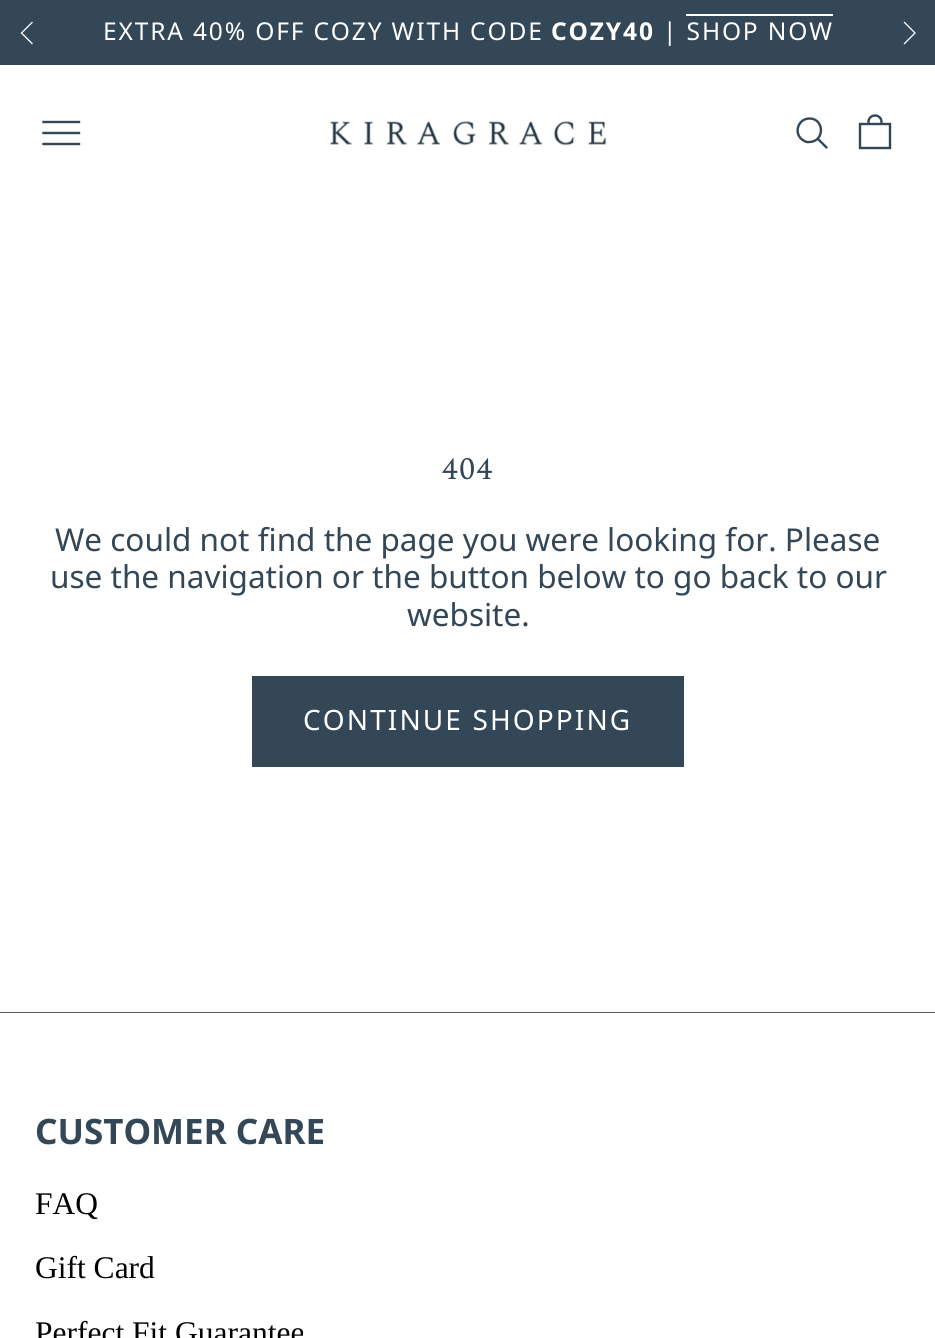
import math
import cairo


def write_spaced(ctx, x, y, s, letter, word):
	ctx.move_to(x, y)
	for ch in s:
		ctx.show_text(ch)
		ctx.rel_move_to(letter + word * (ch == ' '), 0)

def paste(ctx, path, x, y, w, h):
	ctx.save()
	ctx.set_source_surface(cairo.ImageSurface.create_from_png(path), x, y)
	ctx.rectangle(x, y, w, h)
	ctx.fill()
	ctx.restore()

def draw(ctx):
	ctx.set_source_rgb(1, 1, 1)
	ctx.paint()
	ctx.set_source_rgb(0.2, 0.278, 0.341)
	ctx.rectangle(0, 0, 935, 65)
	ctx.fill()
	ctx.new_path()
	ctx.move_to(32, 22.5)
	ctx.line_to(21.5, 33)
	ctx.line_to(32, 43.5)
	ctx.set_source_rgb(1, 1, 1)
	ctx.set_line_width(1.3)
	ctx.set_line_cap(cairo.LINE_CAP_SQUARE)
	ctx.stroke()
	ctx.rectangle(686, 14, 147, 2)
	ctx.fill()
	ctx.select_font_face('Noto Sans')
	ctx.set_font_size(24.5)
	write_spaced(ctx, 103, 40, 'EXTRA 40% OFF COZY WITH CODE', 1.85, 0)
	ctx.select_font_face('Noto Sans', cairo.FONT_SLANT_NORMAL, cairo.FONT_WEIGHT_BOLD)
	write_spaced(ctx, 551, 40, 'COZY40', 1.85, 0)
	ctx.select_font_face('Noto Sans')
	write_spaced(ctx, 663, 40, '| SHOP NOW', 1.85, 0)
	ctx.new_path()
	ctx.move_to(904.5, 43.5)
	ctx.line_to(915, 33)
	ctx.line_to(904.5, 22.5)
	ctx.stroke()
	ctx.new_path()
	ctx.move_to(43.5, 144)
	ctx.line_to(79, 144)
	ctx.move_to(43.5, 133)
	ctx.line_to(79, 133)
	ctx.move_to(43.5, 122)
	ctx.line_to(79, 122)
	ctx.set_source_rgb(0.2, 0.278, 0.341)
	ctx.set_line_width(2.4)
	ctx.stroke()
	paste(ctx, 'media/1.png', 330, 121, 277, 25)
	ctx.new_path()
	ctx.move_to(809.5, 118.5)
	ctx.curve_to(797.5, 118.5, 793, 134.5, 803.5, 140.5)
	ctx.curve_to(805, 141.5, 807.5, 142.5, 809.5, 142)
	ctx.curve_to(825, 141.5, 824.5, 118.5, 809.5, 118.5)
	ctx.close_path()
	ctx.set_line_cap(cairo.LINE_CAP_BUTT)
	ctx.stroke()
	ctx.new_path()
	ctx.move_to(818, 139)
	ctx.line_to(826.5, 147.5)
	ctx.set_line_cap(cairo.LINE_CAP_ROUND)
	ctx.stroke()
	ctx.new_path()
	ctx.move_to(890, 148)
	ctx.line_to(890, 124)
	ctx.line_to(860, 124)
	ctx.line_to(860, 148)
	ctx.close_path()
	ctx.move_to(868.5, 123.5)
	ctx.line_to(868.5, 122)
	ctx.curve_to(868.5, 118, 871.5, 115.5, 875, 115.5)
	ctx.curve_to(878.5, 115.5, 881.5, 118, 881.5, 122)
	ctx.line_to(881.5, 123.5)
	ctx.set_line_cap(cairo.LINE_CAP_BUTT)
	ctx.stroke()
	ctx.select_font_face('Spectral')
	ctx.set_font_size(31.5)
	write_spaced(ctx, 442, 479, '404', 1.5, 0)
	ctx.select_font_face('Noto Sans')
	for x, y, s in [
		(55, 551, 'We could not find the page you were looking for. Please'),
		(50, 588, 'use the navigation or the button below to go back to our'),
		(407, 626, 'website.'),
	]:
		ctx.move_to(x, y)
		ctx.show_text(s)
	ctx.rectangle(252, 676, 432, 91)
	ctx.fill()
	ctx.set_font_size(28)
	ctx.set_source_rgb(1, 1, 1)
	write_spaced(ctx, 303, 730, 'CONTINUE SHOPPING', 2.1, 0)
	ctx.set_source_rgb(0.337, 0.341, 0.412)
	ctx.rectangle(0, 1012, 935, 1)
	ctx.fill()
	ctx.select_font_face('Noto Sans', cairo.FONT_SLANT_NORMAL, cairo.FONT_WEIGHT_BOLD)
	ctx.set_font_size(35)
	ctx.set_source_rgb(0.2, 0.278, 0.341)
	ctx.move_to(35, 1144)
	ctx.show_text('CUSTOMER CARE')
	ctx.select_font_face('Liberation Serif')
	ctx.set_font_size(31.5)
	ctx.set_source_rgb(0, 0, 0)
	for x, y, s in [
		(35, 1214, 'FAQ'),
		(35, 1278, 'Gift Card'),
		(35, 1343, 'Perfect Fit Guarantee'),
	]:
		ctx.move_to(x, y)
		ctx.show_text(s)


surface = cairo.ImageSurface(cairo.FORMAT_RGB24, 935, 1338)
ctx = cairo.Context(surface)
options = cairo.FontOptions()
options.set_hint_metrics(cairo.HINT_METRICS_OFF)
options.set_hint_style(cairo.HINT_STYLE_NONE)
ctx.set_font_options(options)
ctx.set_miter_limit(4)
draw(ctx)
surface.write_to_png('image.png')
